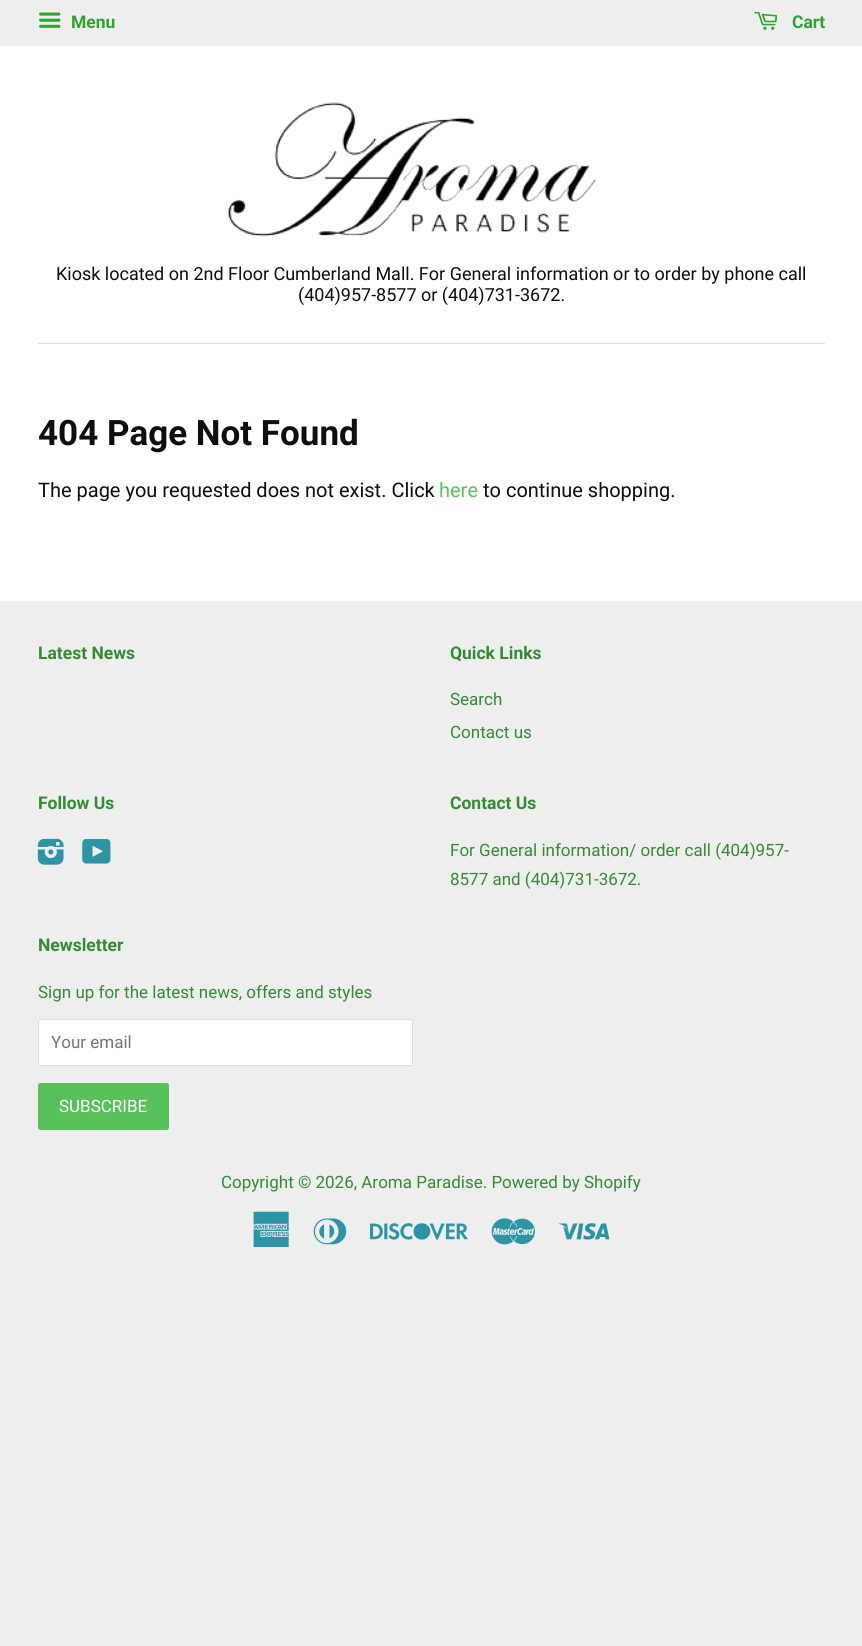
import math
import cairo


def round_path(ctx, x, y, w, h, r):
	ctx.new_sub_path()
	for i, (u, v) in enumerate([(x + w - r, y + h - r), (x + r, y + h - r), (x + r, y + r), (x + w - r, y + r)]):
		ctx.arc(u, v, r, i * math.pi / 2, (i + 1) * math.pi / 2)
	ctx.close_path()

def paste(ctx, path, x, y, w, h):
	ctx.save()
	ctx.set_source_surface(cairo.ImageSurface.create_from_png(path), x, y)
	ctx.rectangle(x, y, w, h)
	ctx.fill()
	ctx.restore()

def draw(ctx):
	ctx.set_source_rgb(0.933, 0.933, 0.933)
	ctx.paint()
	ctx.set_source_rgb(1, 1, 1)
	ctx.rectangle(0, 46, 862, 555)
	ctx.fill()
	paste(ctx, 'media/1.png', 39, 12, 22, 16)
	ctx.select_font_face('Roboto', cairo.FONT_SLANT_NORMAL, cairo.FONT_WEIGHT_BOLD)
	ctx.set_font_size(17.5)
	ctx.set_source_rgb(0.173, 0.643, 0.18)
	ctx.move_to(71, 28)
	ctx.show_text('Menu')
	paste(ctx, 'media/2.png', 754, 11, 24, 19)
	ctx.move_to(792, 28)
	ctx.show_text('Cart')
	ctx.set_source_rgb(0.867, 0.867, 0.867)
	ctx.rectangle(38, 343, 787, 1)
	ctx.fill()
	paste(ctx, 'media/3.png', 227, 102, 370, 135)
	ctx.select_font_face('Roboto')
	ctx.set_font_size(18)
	ctx.set_source_rgb(0.055, 0.055, 0.055)
	ctx.move_to(56, 280)
	ctx.show_text('Kiosk located on 2nd Floor Cumberland Mall. For General information or to order by phone call')
	ctx.move_to(298, 301)
	ctx.show_text('(404)957-8577 or (404)731-3672.')
	ctx.select_font_face('Roboto', cairo.FONT_SLANT_NORMAL, cairo.FONT_WEIGHT_BOLD)
	ctx.set_font_size(35)
	ctx.move_to(38, 445)
	ctx.show_text('404 Page Not Found')
	ctx.select_font_face('Roboto')
	ctx.set_font_size(20)
	ctx.move_to(38, 497)
	ctx.show_text('The page you requested does not exist. Click')
	ctx.set_source_rgb(0.349, 0.757, 0.357)
	ctx.move_to(439, 497)
	ctx.show_text('here')
	ctx.set_source_rgb(0.055, 0.055, 0.055)
	ctx.move_to(483, 497)
	ctx.show_text('to continue shopping.')
	ctx.select_font_face('Roboto', cairo.FONT_SLANT_NORMAL, cairo.FONT_WEIGHT_BOLD)
	ctx.set_font_size(17.5)
	ctx.set_source_rgb(0.2, 0.549, 0.204)
	ctx.move_to(38, 659)
	ctx.show_text('Latest News')
	ctx.move_to(450, 659)
	ctx.show_text('Quick Links')
	ctx.select_font_face('Roboto')
	ctx.set_font_size(17)
	ctx.move_to(450, 705)
	ctx.show_text('Search')
	ctx.move_to(450, 738)
	ctx.show_text('Contact us')
	ctx.select_font_face('Roboto', cairo.FONT_SLANT_NORMAL, cairo.FONT_WEIGHT_BOLD)
	ctx.set_font_size(17.5)
	ctx.move_to(38, 809)
	ctx.show_text('Follow Us')
	paste(ctx, 'media/4.png', 37, 838, 27, 27)
	paste(ctx, 'media/5.png', 82, 839, 29, 25)
	ctx.move_to(450, 809)
	ctx.show_text('Contact Us')
	ctx.select_font_face('Roboto')
	ctx.set_font_size(17)
	ctx.move_to(450, 856)
	ctx.show_text('For General information/ order call (404)957-')
	ctx.move_to(450, 885)
	ctx.show_text('8577 and (404)731-3672.')
	ctx.select_font_face('Roboto', cairo.FONT_SLANT_NORMAL, cairo.FONT_WEIGHT_BOLD)
	ctx.set_font_size(17.5)
	ctx.move_to(38, 951)
	ctx.show_text('Newsletter')
	ctx.select_font_face('Roboto')
	ctx.set_font_size(17)
	ctx.move_to(38, 998)
	ctx.show_text('Sign up for the latest news, offers and styles')
	ctx.set_source_rgb(1, 1, 1)
	round_path(ctx, 38.5, 1019.5, 374, 46, 2)
	ctx.fill_preserve()
	ctx.set_source_rgb(0.867, 0.867, 0.867)
	ctx.set_line_width(1)
	ctx.stroke()
	ctx.set_source_rgb(0.459, 0.459, 0.459)
	ctx.move_to(51, 1048)
	ctx.show_text('Your email')
	ctx.set_source_rgb(0.349, 0.757, 0.357)
	round_path(ctx, 38, 1083, 131, 47, 2.5)
	ctx.fill()
	ctx.set_source_rgb(1, 1, 1)
	ctx.move_to(59, 1112)
	ctx.show_text('SUBSCRIBE')
	ctx.set_source_rgb(0.2, 0.549, 0.204)
	ctx.move_to(221, 1188)
	ctx.show_text('Copyright © 2026, Aroma Paradise. Powered by Shopify')
	paste(ctx, 'media/6.png', 253, 1211, 36, 37)
	paste(ctx, 'media/7.png', 313, 1218, 34, 27)
	paste(ctx, 'media/8.png', 370, 1223, 98, 17)
	paste(ctx, 'media/9.png', 491, 1218, 44, 27)
	paste(ctx, 'media/10.png', 558, 1223, 52, 17)


surface = cairo.ImageSurface(cairo.FORMAT_RGB24, 862, 1646)
ctx = cairo.Context(surface)
options = cairo.FontOptions()
options.set_hint_metrics(cairo.HINT_METRICS_OFF)
options.set_hint_style(cairo.HINT_STYLE_NONE)
ctx.set_font_options(options)
ctx.set_miter_limit(4)
draw(ctx)
surface.write_to_png('image.png')
